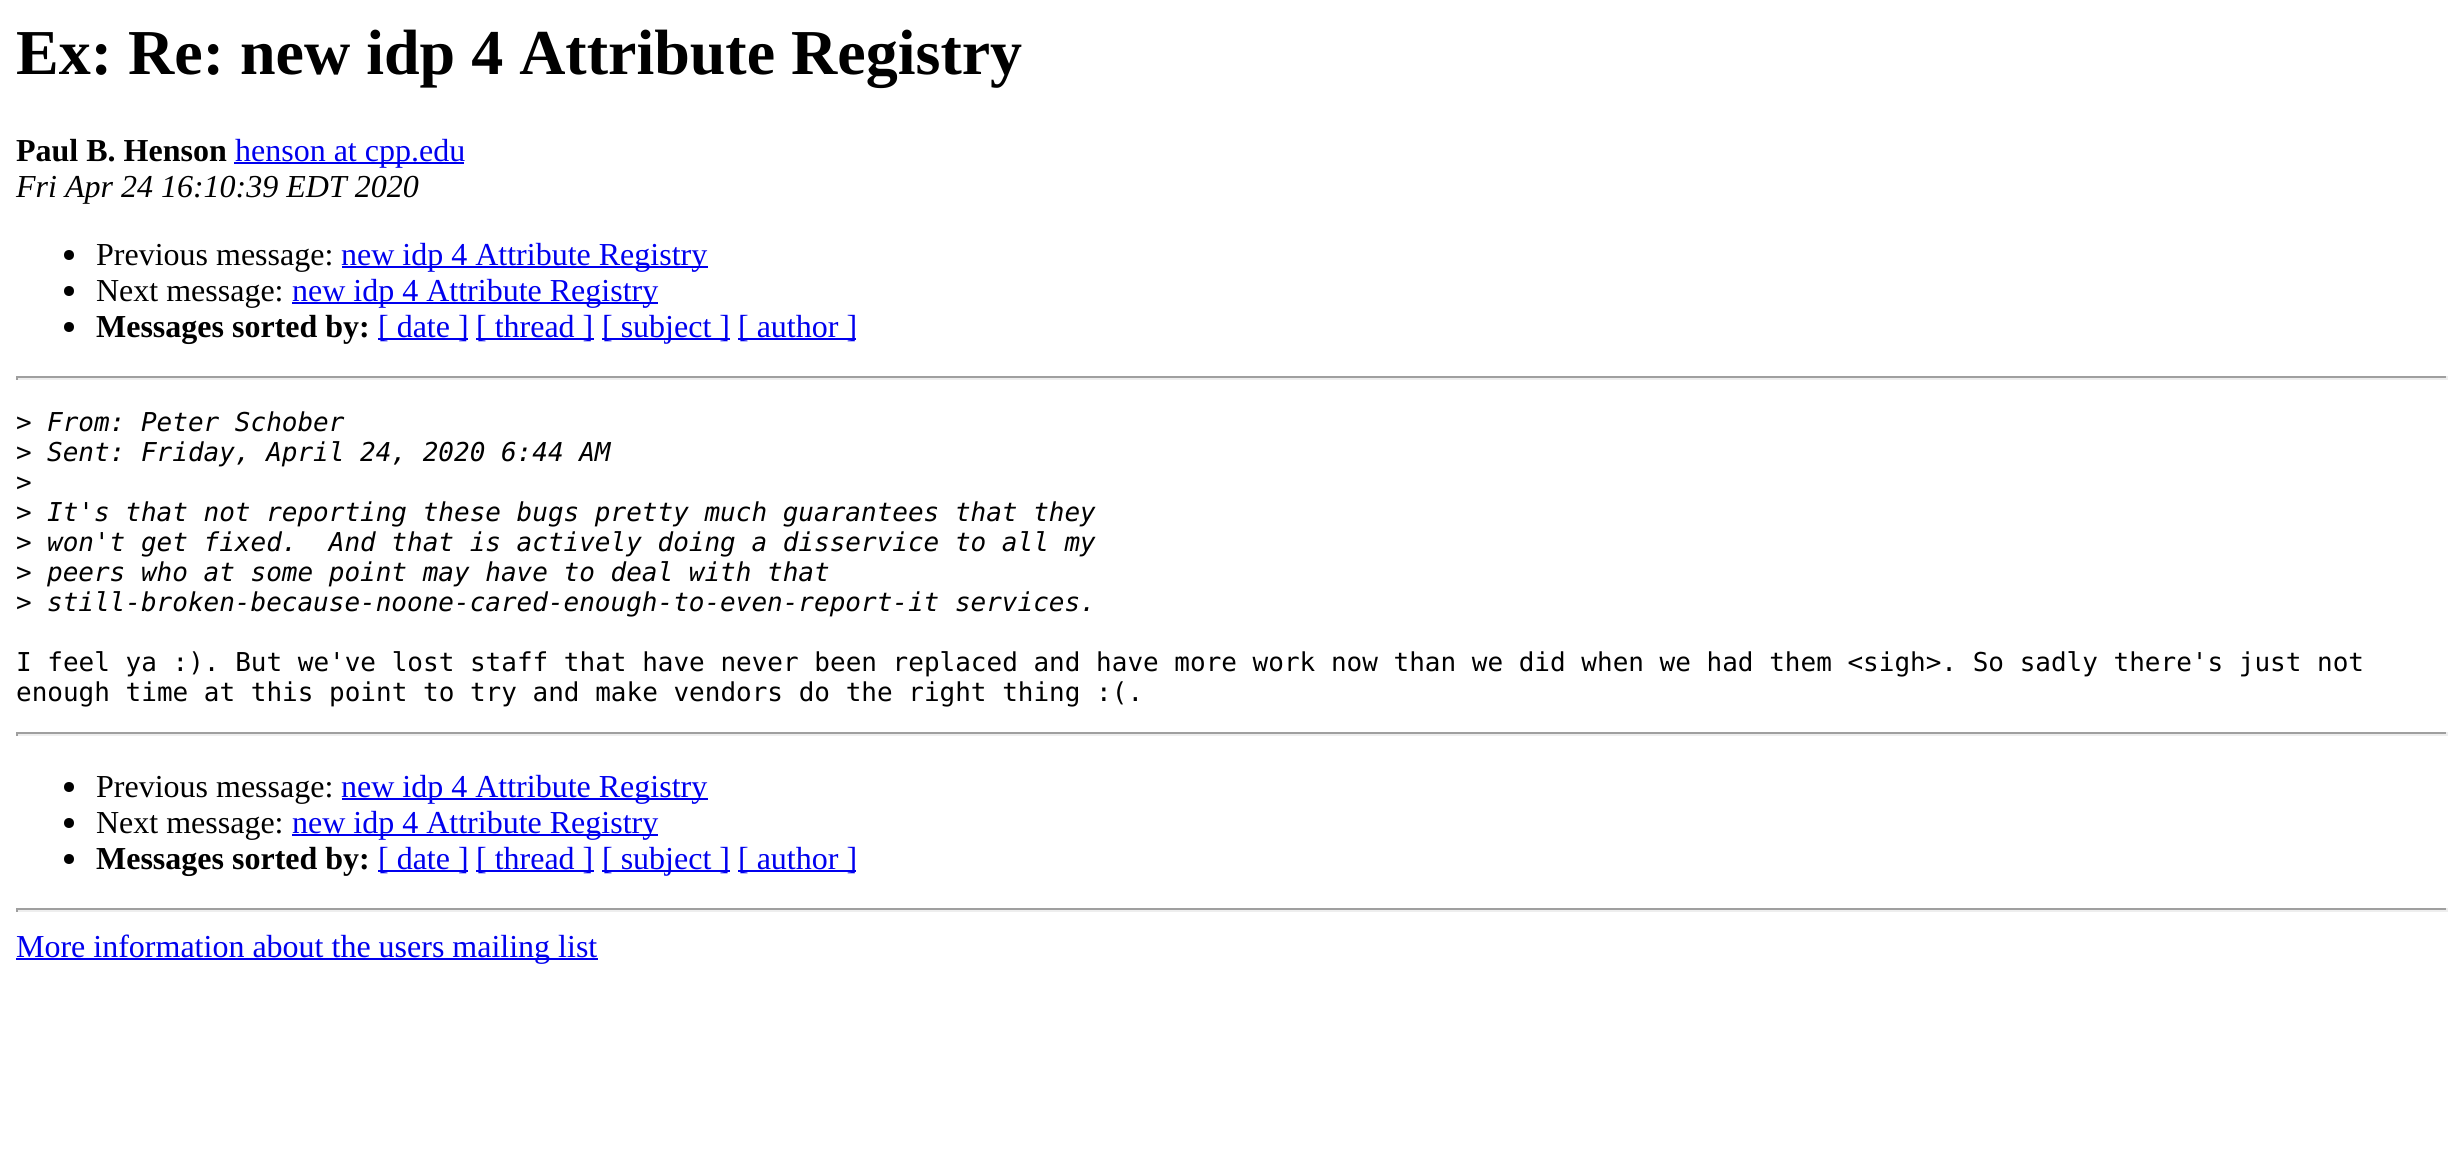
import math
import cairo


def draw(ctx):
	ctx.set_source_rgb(1, 1, 1)
	ctx.paint()
	ctx.select_font_face('Liberation Serif', cairo.FONT_SLANT_NORMAL, cairo.FONT_WEIGHT_BOLD)
	ctx.set_font_size(64)
	ctx.set_source_rgb(0, 0, 0)
	ctx.move_to(16, 74)
	ctx.show_text('Ex: Re: new idp 4 Attribute Registry')
	ctx.set_font_size(32)
	ctx.move_to(16, 161)
	ctx.show_text('Paul B. Henson')
	ctx.set_source_rgb(0, 0, 0.933)
	ctx.rectangle(234, 162, 230, 2)
	ctx.fill()
	ctx.select_font_face('Liberation Serif')
	ctx.move_to(235, 161)
	ctx.show_text('henson at cpp.edu')
	ctx.select_font_face('Liberation Serif', cairo.FONT_SLANT_ITALIC)
	ctx.set_source_rgb(0, 0, 0)
	ctx.move_to(16, 197)
	ctx.show_text('Fri Apr 24 16:10:39 EDT 2020')
	ctx.new_path()
	ctx.arc(69, 255, 5, 0, 2 * math.pi)
	ctx.fill()
	ctx.select_font_face('Liberation Serif')
	ctx.move_to(96, 265)
	ctx.show_text('Previous message:')
	ctx.set_source_rgb(0, 0, 0.933)
	ctx.rectangle(342, 266, 366, 2)
	ctx.fill()
	ctx.move_to(341, 265)
	ctx.show_text('new idp 4 Attribute Registry')
	ctx.set_source_rgb(0, 0, 0)
	ctx.new_path()
	ctx.arc(69, 291, 5, 0, 2 * math.pi)
	ctx.fill()
	ctx.move_to(96, 301)
	ctx.show_text('Next message:')
	ctx.set_source_rgb(0, 0, 0.933)
	ctx.rectangle(292, 302, 366, 2)
	ctx.fill()
	ctx.move_to(292, 301)
	ctx.show_text('new idp 4 Attribute Registry')
	ctx.set_source_rgb(0, 0, 0)
	ctx.new_path()
	ctx.arc(69, 327, 5, 0, 2 * math.pi)
	ctx.fill()
	ctx.select_font_face('Liberation Serif', cairo.FONT_SLANT_NORMAL, cairo.FONT_WEIGHT_BOLD)
	ctx.move_to(96, 337)
	ctx.show_text('Messages sorted by:')
	ctx.set_source_rgb(0, 0, 0.933)
	ctx.rectangle(378, 338, 90, 2)
	ctx.fill()
	ctx.select_font_face('Liberation Serif')
	ctx.move_to(378, 337)
	ctx.show_text('[ date ]')
	ctx.rectangle(476, 338, 118, 2)
	ctx.fill()
	ctx.move_to(476, 337)
	ctx.show_text('[ thread ]')
	ctx.rectangle(602, 338, 128, 2)
	ctx.fill()
	ctx.move_to(602, 337)
	ctx.show_text('[ subject ]')
	ctx.rectangle(738, 338, 118, 2)
	ctx.fill()
	ctx.move_to(738, 337)
	ctx.show_text('[ author ]')
	ctx.set_source_rgb(0.624, 0.624, 0.624)
	ctx.rectangle(16, 376, 2432, 2)
	ctx.fill()
	ctx.set_source_rgb(0.933, 0.933, 0.933)
	ctx.rectangle(2446, 376, 2, 4)
	ctx.rectangle(16, 378, 2432, 2)
	ctx.fill()
	ctx.set_source_rgb(0.624, 0.624, 0.624)
	ctx.rectangle(16, 376, 2, 4)
	ctx.fill()
	ctx.select_font_face('DejaVu Sans Mono')
	ctx.set_font_size(26)
	ctx.set_source_rgb(0, 0, 0)
	ctx.move_to(16, 431)
	ctx.show_text('>')
	ctx.select_font_face('DejaVu Sans Mono', cairo.FONT_SLANT_ITALIC)
	ctx.move_to(47, 431)
	ctx.show_text('From: Peter Schober')
	ctx.select_font_face('DejaVu Sans Mono')
	ctx.move_to(16, 461)
	ctx.show_text('>')
	ctx.select_font_face('DejaVu Sans Mono', cairo.FONT_SLANT_ITALIC)
	ctx.move_to(47, 461)
	ctx.show_text('Sent: Friday, April 24, 2020 6:44 AM')
	ctx.select_font_face('DejaVu Sans Mono')
	ctx.move_to(16, 491)
	ctx.show_text('>')
	ctx.move_to(16, 521)
	ctx.show_text('>')
	ctx.select_font_face('DejaVu Sans Mono', cairo.FONT_SLANT_ITALIC)
	ctx.move_to(47, 521)
	ctx.show_text('It\'s that not reporting these bugs pretty much guarantees that they')
	ctx.select_font_face('DejaVu Sans Mono')
	ctx.move_to(16, 551)
	ctx.show_text('>')
	ctx.select_font_face('DejaVu Sans Mono', cairo.FONT_SLANT_ITALIC)
	ctx.move_to(47, 551)
	ctx.show_text('won\'t get fixed.  And that is actively doing a disservice to all my')
	ctx.select_font_face('DejaVu Sans Mono')
	ctx.move_to(16, 581)
	ctx.show_text('>')
	ctx.select_font_face('DejaVu Sans Mono', cairo.FONT_SLANT_ITALIC)
	ctx.move_to(47, 581)
	ctx.show_text('peers who at some point may have to deal with that')
	ctx.select_font_face('DejaVu Sans Mono')
	ctx.move_to(16, 611)
	ctx.show_text('>')
	ctx.select_font_face('DejaVu Sans Mono', cairo.FONT_SLANT_ITALIC)
	ctx.move_to(47, 611)
	ctx.show_text('still-broken-because-noone-cared-enough-to-even-report-it services.')
	ctx.select_font_face('DejaVu Sans Mono')
	ctx.move_to(16, 671)
	ctx.show_text('I feel ya :). But we\'ve lost staff that have never been replaced and have more work now than we did when we had them <sigh>. So sadly there\'s just not')
	ctx.move_to(16, 701)
	ctx.show_text('enough time at this point to try and make vendors do the right thing :(.')
	ctx.set_source_rgb(0.624, 0.624, 0.624)
	ctx.rectangle(16, 732, 2432, 2)
	ctx.fill()
	ctx.set_source_rgb(0.933, 0.933, 0.933)
	ctx.rectangle(2446, 732, 2, 4)
	ctx.rectangle(16, 734, 2432, 2)
	ctx.fill()
	ctx.set_source_rgb(0.624, 0.624, 0.624)
	ctx.rectangle(16, 732, 2, 4)
	ctx.fill()
	ctx.set_source_rgb(0, 0, 0)
	ctx.arc(69, 787, 5, 0, 2 * math.pi)
	ctx.fill()
	ctx.select_font_face('Liberation Serif')
	ctx.set_font_size(32)
	ctx.move_to(96, 797)
	ctx.show_text('Previous message:')
	ctx.set_source_rgb(0, 0, 0.933)
	ctx.rectangle(342, 798, 366, 2)
	ctx.fill()
	ctx.move_to(341, 797)
	ctx.show_text('new idp 4 Attribute Registry')
	ctx.set_source_rgb(0, 0, 0)
	ctx.new_path()
	ctx.arc(69, 823, 5, 0, 2 * math.pi)
	ctx.fill()
	ctx.move_to(96, 833)
	ctx.show_text('Next message:')
	ctx.set_source_rgb(0, 0, 0.933)
	ctx.rectangle(292, 834, 366, 2)
	ctx.fill()
	ctx.move_to(292, 833)
	ctx.show_text('new idp 4 Attribute Registry')
	ctx.set_source_rgb(0, 0, 0)
	ctx.new_path()
	ctx.arc(69, 859, 5, 0, 2 * math.pi)
	ctx.fill()
	ctx.select_font_face('Liberation Serif', cairo.FONT_SLANT_NORMAL, cairo.FONT_WEIGHT_BOLD)
	ctx.move_to(96, 869)
	ctx.show_text('Messages sorted by:')
	ctx.set_source_rgb(0, 0, 0.933)
	ctx.rectangle(378, 870, 90, 2)
	ctx.fill()
	ctx.select_font_face('Liberation Serif')
	ctx.move_to(378, 869)
	ctx.show_text('[ date ]')
	ctx.rectangle(476, 870, 118, 2)
	ctx.fill()
	ctx.move_to(476, 869)
	ctx.show_text('[ thread ]')
	ctx.rectangle(602, 870, 128, 2)
	ctx.fill()
	ctx.move_to(602, 869)
	ctx.show_text('[ subject ]')
	ctx.rectangle(738, 870, 118, 2)
	ctx.fill()
	ctx.move_to(738, 869)
	ctx.show_text('[ author ]')
	ctx.set_source_rgb(0.624, 0.624, 0.624)
	ctx.rectangle(16, 908, 2432, 2)
	ctx.fill()
	ctx.set_source_rgb(0.933, 0.933, 0.933)
	ctx.rectangle(2446, 908, 2, 4)
	ctx.rectangle(16, 910, 2432, 2)
	ctx.fill()
	ctx.set_source_rgb(0.624, 0.624, 0.624)
	ctx.rectangle(16, 908, 2, 4)
	ctx.fill()
	ctx.set_source_rgb(0, 0, 0.933)
	ctx.rectangle(16, 958, 582, 2)
	ctx.fill()
	ctx.move_to(16, 957)
	ctx.show_text('More information about the users mailing list')


surface = cairo.ImageSurface(cairo.FORMAT_RGB24, 2464, 1175)
ctx = cairo.Context(surface)
options = cairo.FontOptions()
options.set_hint_metrics(cairo.HINT_METRICS_OFF)
options.set_hint_style(cairo.HINT_STYLE_NONE)
ctx.set_font_options(options)
ctx.set_miter_limit(4)
draw(ctx)
surface.write_to_png('image.png')
